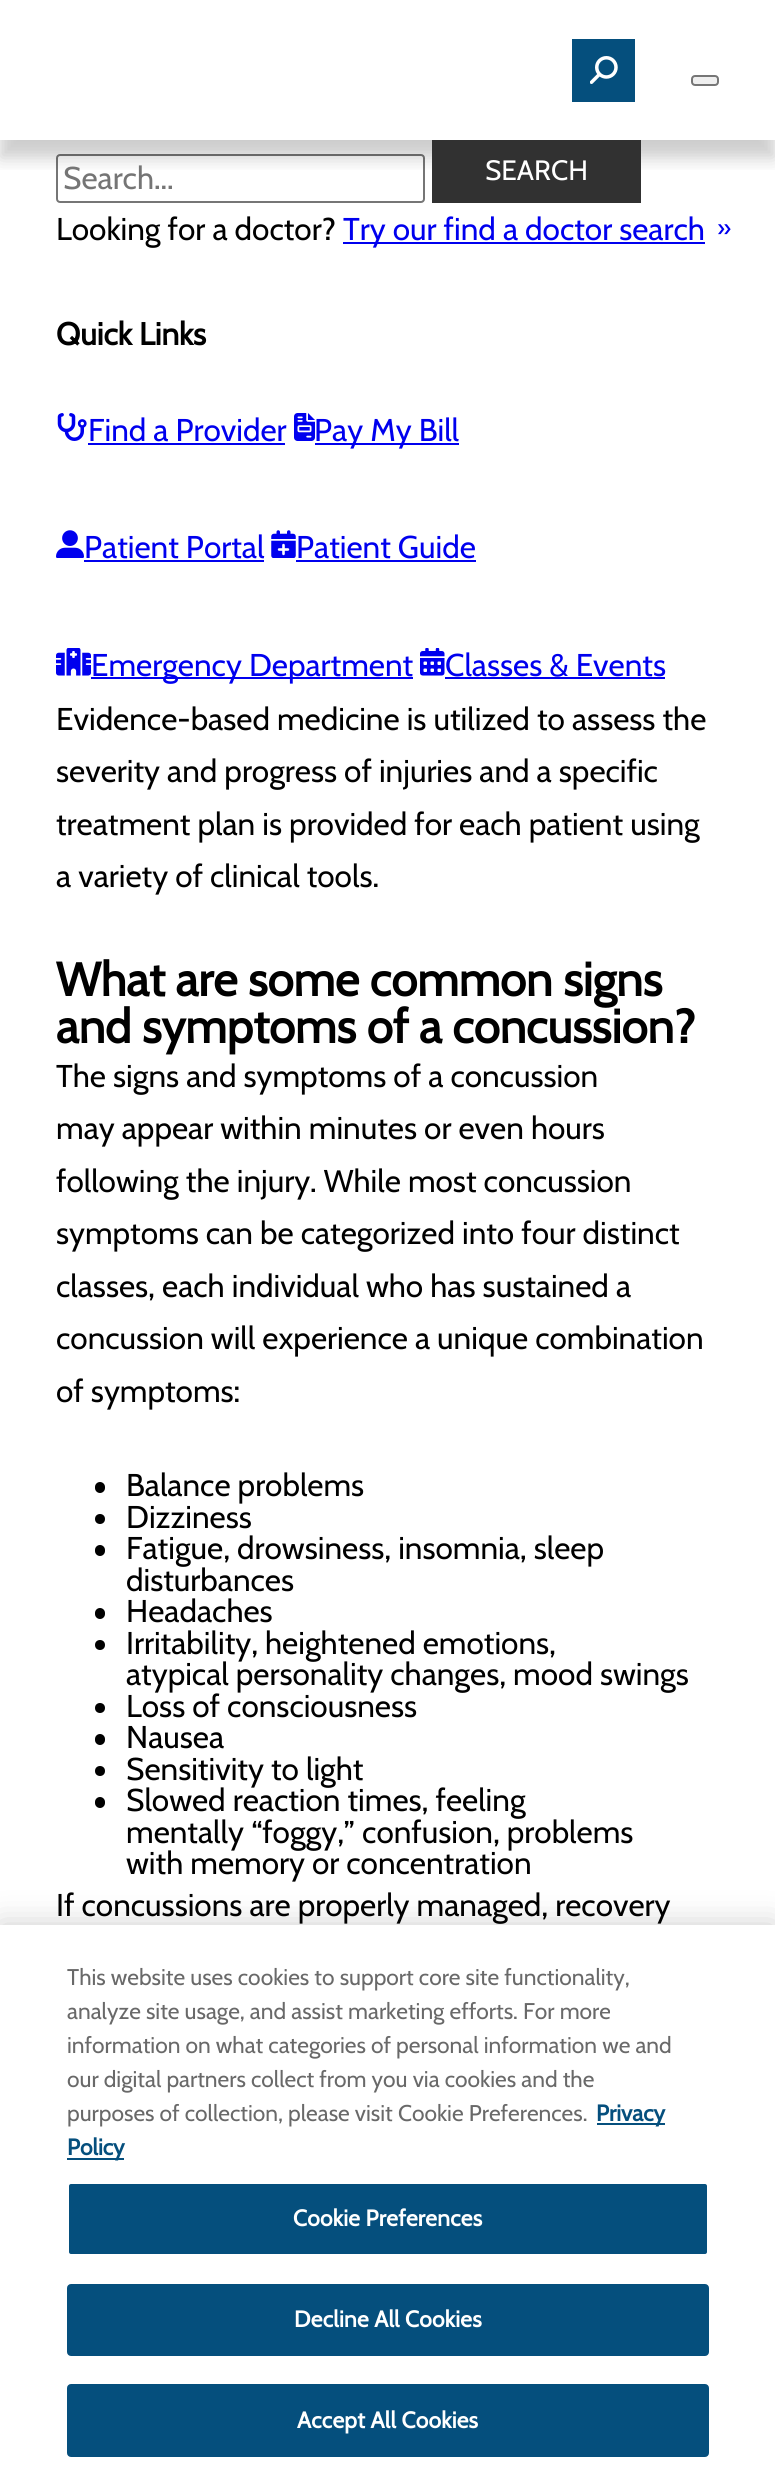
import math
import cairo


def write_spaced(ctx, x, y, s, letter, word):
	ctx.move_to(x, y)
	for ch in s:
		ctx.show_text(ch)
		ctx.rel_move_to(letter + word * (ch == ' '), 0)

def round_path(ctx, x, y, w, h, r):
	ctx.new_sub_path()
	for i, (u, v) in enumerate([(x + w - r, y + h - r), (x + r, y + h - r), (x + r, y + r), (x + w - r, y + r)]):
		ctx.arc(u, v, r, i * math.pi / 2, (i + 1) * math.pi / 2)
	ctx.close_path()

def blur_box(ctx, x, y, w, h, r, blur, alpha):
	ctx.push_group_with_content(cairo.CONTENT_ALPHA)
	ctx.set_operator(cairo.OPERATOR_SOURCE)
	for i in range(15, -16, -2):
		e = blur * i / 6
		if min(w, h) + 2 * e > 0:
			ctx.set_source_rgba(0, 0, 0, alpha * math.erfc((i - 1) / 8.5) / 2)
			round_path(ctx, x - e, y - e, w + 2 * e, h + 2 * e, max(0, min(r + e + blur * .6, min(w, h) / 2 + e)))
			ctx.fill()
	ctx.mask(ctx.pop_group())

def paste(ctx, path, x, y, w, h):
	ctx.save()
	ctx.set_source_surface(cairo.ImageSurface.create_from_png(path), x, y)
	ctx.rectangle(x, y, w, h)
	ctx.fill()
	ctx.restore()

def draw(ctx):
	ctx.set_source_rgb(1, 1, 1)
	ctx.paint()
	round_path(ctx, 57, 155, 367, 47, 3)
	ctx.set_source_rgb(0.463, 0.463, 0.463)
	ctx.stroke()
	ctx.save()
	ctx.rectangle(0, 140, 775, 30)
	ctx.clip()
	ctx.set_source_rgb(0, 0, 0)
	blur_box(ctx, 0, 18, 775, 140, 0, 9, 0.2)
	ctx.restore()
	ctx.set_source_rgb(0.02, 0.31, 0.49)
	ctx.rectangle(572, 39, 63, 63)
	ctx.fill()
	paste(ctx, 'media/1.png', 590, 56, 28, 28)
	ctx.set_source_rgb(0.937, 0.937, 0.937)
	round_path(ctx, 692, 76, 26, 9, 3)
	ctx.fill_preserve()
	ctx.set_source_rgb(0.463, 0.463, 0.463)
	ctx.stroke()
	ctx.select_font_face('Cabin')
	ctx.set_font_size(31.5)
	ctx.set_source_rgb(0.459, 0.459, 0.459)
	ctx.move_to(63, 189)
	ctx.show_text('Search...')
	ctx.set_source_rgb(0.192, 0.192, 0.192)
	ctx.rectangle(432, 140, 209, 63)
	ctx.fill()
	ctx.set_font_size(28)
	ctx.set_source_rgb(1, 1, 1)
	ctx.move_to(485, 180)
	ctx.show_text('SEARCH')
	ctx.set_font_size(31.5)
	ctx.set_source_rgb(0, 0, 0)
	ctx.move_to(56, 240)
	ctx.show_text('Looking for a doctor?')
	ctx.set_source_rgb(0, 0, 0.933)
	ctx.rectangle(343, 242, 362, 2)
	ctx.fill()
	ctx.move_to(343, 240)
	ctx.show_text('Try our find a doctor search')
	ctx.set_font_size(24)
	ctx.move_to(717, 236)
	ctx.show_text('»')
	ctx.select_font_face('Cabin', cairo.FONT_SLANT_NORMAL, cairo.FONT_WEIGHT_BOLD)
	ctx.set_font_size(31.5)
	ctx.set_source_rgb(0, 0, 0)
	ctx.move_to(56, 345)
	ctx.show_text('Quick Links')
	paste(ctx, 'media/2.png', 57, 413, 30, 28)
	ctx.select_font_face('Cabin')
	ctx.set_source_rgb(0, 0, 0.933)
	ctx.move_to(88, 441)
	ctx.show_text('Find a Provider')
	ctx.rectangle(88, 443, 197, 2)
	ctx.fill()
	paste(ctx, 'media/3.png', 294, 413, 21, 28)
	ctx.rectangle(315, 443, 144, 2)
	ctx.fill()
	ctx.move_to(314, 441)
	ctx.show_text('Pay My Bill')
	paste(ctx, 'media/4.png', 56, 530, 28, 28)
	ctx.move_to(84, 558)
	ctx.show_text('Patient Portal')
	ctx.rectangle(84, 560, 180, 2)
	ctx.fill()
	paste(ctx, 'media/5.png', 271, 530, 25, 28)
	ctx.move_to(296, 558)
	ctx.show_text('Patient Guide')
	ctx.rectangle(296, 560, 180, 2)
	ctx.fill()
	paste(ctx, 'media/6.png', 56, 648, 35, 28)
	ctx.rectangle(91, 677, 322, 2)
	ctx.fill()
	ctx.move_to(91, 676)
	ctx.show_text('Emergency Department')
	paste(ctx, 'media/7.png', 420, 648, 25, 28)
	ctx.move_to(445, 676)
	ctx.show_text('Classes & Events')
	ctx.rectangle(445, 677, 220, 2)
	ctx.fill()
	ctx.set_source_rgb(0, 0, 0)
	for x, y, s in [
		(56, 730, 'Evidence-based medicine is utilized to assess the'),
		(56, 782, 'severity and progress of injuries and a specific'),
		(56, 835, 'treatment plan is provided for each patient using'),
		(56, 887, 'a variety of clinical tools.'),
	]:
		ctx.move_to(x, y)
		ctx.show_text(s)
	ctx.select_font_face('Cabin', cairo.FONT_SLANT_NORMAL, cairo.FONT_WEIGHT_BOLD)
	ctx.set_font_size(47.25)
	ctx.move_to(56, 996)
	ctx.show_text('What are some common signs')
	ctx.move_to(56, 1043)
	ctx.show_text('and symptoms of a concussion?')
	ctx.select_font_face('Cabin')
	ctx.set_font_size(31.5)
	for x, y, s in [
		(56, 1087, 'The signs and symptoms of a concussion'),
		(56, 1139, 'may appear within minutes or even hours'),
		(56, 1192, 'following the injury. While most concussion'),
		(56, 1244, 'symptoms can be categorized into four distinct'),
		(56, 1297, 'classes, each individual who has sustained a'),
		(56, 1349, 'concussion will experience a unique combination'),
		(56, 1402, 'of symptoms:'),
	]:
		ctx.move_to(x, y)
		ctx.show_text(s)
	round_path(ctx, 95, 1482, 10, 11, 5)
	ctx.fill()
	ctx.move_to(126, 1496)
	ctx.show_text('Balance problems')
	ctx.new_path()
	ctx.arc(100, 1519, 5, 0, 2 * math.pi)
	ctx.fill()
	ctx.move_to(126, 1528)
	ctx.show_text('Dizziness')
	round_path(ctx, 95, 1545, 10, 11, 5)
	ctx.fill()
	ctx.move_to(126, 1559)
	ctx.show_text('Fatigue, drowsiness, insomnia, sleep')
	ctx.move_to(126, 1591)
	ctx.show_text('disturbances')
	round_path(ctx, 95, 1608, 10, 11, 5)
	ctx.fill()
	ctx.move_to(126, 1622)
	ctx.show_text('Headaches')
	ctx.new_path()
	ctx.arc(100, 1645, 5, 0, 2 * math.pi)
	ctx.fill()
	ctx.move_to(126, 1654)
	ctx.show_text('Irritability, heightened emotions,')
	ctx.move_to(126, 1685)
	ctx.show_text('atypical personality changes, mood swings')
	ctx.new_path()
	ctx.arc(100, 1708, 5, 0, 2 * math.pi)
	ctx.fill()
	ctx.move_to(126, 1717)
	ctx.show_text('Loss of consciousness')
	round_path(ctx, 95, 1734, 10, 11, 5)
	ctx.fill()
	ctx.move_to(126, 1748)
	ctx.show_text('Nausea')
	ctx.new_path()
	ctx.arc(100, 1771, 5, 0, 2 * math.pi)
	ctx.fill()
	ctx.move_to(126, 1780)
	ctx.show_text('Sensitivity to light')
	round_path(ctx, 95, 1797, 10, 11, 5)
	ctx.fill()
	for x, y, s in [
		(126, 1811, 'Slowed reaction times, feeling'),
		(126, 1843, 'mentally “foggy,” confusion, problems'),
		(126, 1874, 'with memory or concentration'),
		(56, 1916, 'If concussions are properly managed, recovery'),
	]:
		ctx.move_to(x, y)
		ctx.show_text(s)
	ctx.set_source_rgb(0, 0, 0)
	blur_box(ctx, 0, 1925, 775, 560, 0, 16, 0.2)
	ctx.set_source_rgb(1, 1, 1)
	ctx.rectangle(0, 1925, 775, 559)
	ctx.fill()
	ctx.set_font_size(22.75)
	ctx.set_source_rgb(0.412, 0.412, 0.412)
	for x, y, s in [
		(67, 1985, 'This website uses cookies to support core site functionality,'),
		(67, 2019, 'analyze site usage, and assist marketing efforts. For more'),
		(67, 2053, 'information on what categories of personal information we and'),
		(67, 2087, 'our digital partners collect from you via cookies and the'),
		(67, 2121, 'purposes of collection, please visit Cookie Preferences.'),
	]:
		ctx.move_to(x, y)
		ctx.show_text(s)
	ctx.set_source_rgb(0.02, 0.31, 0.49)
	ctx.rectangle(597, 2123, 68, 2)
	ctx.fill()
	ctx.select_font_face('Cabin', cairo.FONT_SLANT_NORMAL, cairo.FONT_WEIGHT_BOLD)
	ctx.move_to(596, 2121)
	ctx.show_text('Privacy')
	ctx.rectangle(67, 2158, 57, 2)
	ctx.fill()
	ctx.move_to(67, 2155)
	ctx.show_text('Policy')
	round_path(ctx, 68, 2183, 640, 72, 3)
	ctx.fill_preserve()
	ctx.set_source_rgb(1, 1, 1)
	ctx.stroke()
	write_spaced(ctx, 293, 2226, 'Cookie Preferences', 0.25, 0)
	ctx.set_source_rgb(0.02, 0.31, 0.49)
	round_path(ctx, 68, 2285, 640, 70, 3)
	ctx.fill_preserve()
	ctx.stroke()
	ctx.set_source_rgb(1, 1, 1)
	write_spaced(ctx, 294, 2327, 'Decline All Cookies', 0.25, 0)
	ctx.set_source_rgb(0.02, 0.31, 0.49)
	round_path(ctx, 68, 2385, 640, 71, 3)
	ctx.fill_preserve()
	ctx.stroke()
	ctx.set_source_rgb(1, 1, 1)
	write_spaced(ctx, 297, 2428, 'Accept All Cookies', 0.25, 0)


surface = cairo.ImageSurface(cairo.FORMAT_RGB24, 775, 2484)
ctx = cairo.Context(surface)
options = cairo.FontOptions()
options.set_hint_metrics(cairo.HINT_METRICS_OFF)
options.set_hint_style(cairo.HINT_STYLE_NONE)
ctx.set_font_options(options)
ctx.set_miter_limit(4)
draw(ctx)
surface.write_to_png('image.png')
